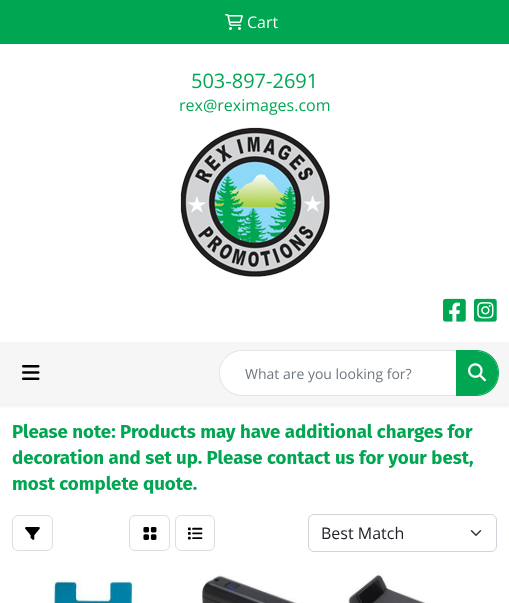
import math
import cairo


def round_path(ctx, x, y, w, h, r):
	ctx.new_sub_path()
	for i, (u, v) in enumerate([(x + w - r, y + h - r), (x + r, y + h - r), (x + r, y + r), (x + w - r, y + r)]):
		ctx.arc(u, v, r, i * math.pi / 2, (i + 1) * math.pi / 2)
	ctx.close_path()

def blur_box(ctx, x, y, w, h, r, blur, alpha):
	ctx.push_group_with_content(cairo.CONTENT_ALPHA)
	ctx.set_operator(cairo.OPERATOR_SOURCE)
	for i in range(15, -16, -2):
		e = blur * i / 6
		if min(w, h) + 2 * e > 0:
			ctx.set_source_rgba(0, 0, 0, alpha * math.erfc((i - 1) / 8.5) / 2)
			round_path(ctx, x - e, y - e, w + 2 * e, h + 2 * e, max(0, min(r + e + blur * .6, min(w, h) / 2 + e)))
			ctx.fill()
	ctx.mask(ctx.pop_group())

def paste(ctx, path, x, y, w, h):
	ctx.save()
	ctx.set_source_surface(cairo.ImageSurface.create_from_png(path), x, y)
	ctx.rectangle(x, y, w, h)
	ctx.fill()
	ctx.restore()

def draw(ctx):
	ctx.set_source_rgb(1, 1, 1)
	ctx.paint()
	ctx.set_source_rgb(0, 0.651, 0.318)
	ctx.rectangle(0, 0, 509, 44)
	ctx.fill()
	paste(ctx, 'media/1.png', 225, 14, 18, 16)
	ctx.select_font_face('Open Sans')
	ctx.set_font_size(16)
	ctx.set_source_rgb(1, 1, 1)
	ctx.move_to(247, 28)
	ctx.show_text('Cart')
	ctx.set_font_size(20)
	ctx.set_source_rgb(0, 0.651, 0.318)
	ctx.move_to(191, 88)
	ctx.show_text('503-897-2691')
	ctx.set_font_size(16)
	ctx.move_to(179, 111)
	ctx.show_text('rex@reximages.com')
	paste(ctx, 'media/2.png', 180, 127, 150, 150)
	paste(ctx, 'media/3.png', 443, 298, 23, 24)
	paste(ctx, 'media/4.png', 474, 298, 23, 24)
	ctx.set_source_rgb(0, 0, 0)
	blur_box(ctx, 0, 344, 509, 62, 0, 2, 0.07)
	ctx.set_source_rgb(0.961, 0.961, 0.961)
	ctx.rectangle(0, 342, 509, 62)
	ctx.fill()
	paste(ctx, 'media/5.png', 22, 365, 18, 15)
	ctx.set_source_rgb(1, 1, 1)
	ctx.new_path()
	ctx.move_to(242, 350.5)
	ctx.line_to(456.5, 350.5)
	ctx.line_to(456.5, 395.5)
	ctx.line_to(242, 395.5)
	ctx.curve_to(229.5, 395.5, 219.5, 385.5, 219.5, 373)
	ctx.curve_to(219.5, 360.5, 229.5, 350.5, 242, 350.5)
	ctx.close_path()
	ctx.fill_preserve()
	ctx.set_source_rgb(0.894, 0.894, 0.894)
	ctx.set_line_width(1)
	ctx.stroke()
	ctx.set_font_size(14)
	ctx.set_source_rgb(0.424, 0.459, 0.49)
	ctx.move_to(245, 379)
	ctx.show_text('What are you looking for?')
	ctx.set_source_rgb(0, 0.651, 0.318)
	ctx.new_path()
	ctx.move_to(456, 351)
	ctx.line_to(476, 351)
	ctx.curve_to(488, 351, 498, 361, 498, 373)
	ctx.curve_to(498, 385, 488, 395, 476, 395)
	ctx.line_to(456, 395)
	ctx.close_path()
	ctx.fill()
	ctx.set_fill_rule(cairo.FILL_RULE_EVEN_ODD)
	ctx.new_path()
	ctx.move_to(456, 350)
	ctx.line_to(476, 350)
	ctx.curve_to(489, 350, 499, 360, 499, 373)
	ctx.curve_to(499, 386, 489, 396, 476, 396)
	ctx.line_to(456, 396)
	ctx.close_path()
	ctx.move_to(456, 351)
	ctx.line_to(476, 351)
	ctx.curve_to(488, 351, 498, 361, 498, 373)
	ctx.curve_to(498, 385, 488, 395, 476, 395)
	ctx.line_to(456, 395)
	ctx.close_path()
	ctx.fill()
	paste(ctx, 'media/6.png', 468, 363, 18, 19)
	paste(ctx, 'media/7.png', 12, 423, 485, 180)


surface = cairo.ImageSurface(cairo.FORMAT_RGB24, 509, 603)
ctx = cairo.Context(surface)
options = cairo.FontOptions()
options.set_hint_metrics(cairo.HINT_METRICS_OFF)
options.set_hint_style(cairo.HINT_STYLE_NONE)
ctx.set_font_options(options)
ctx.set_miter_limit(4)
draw(ctx)
surface.write_to_png('image.png')
